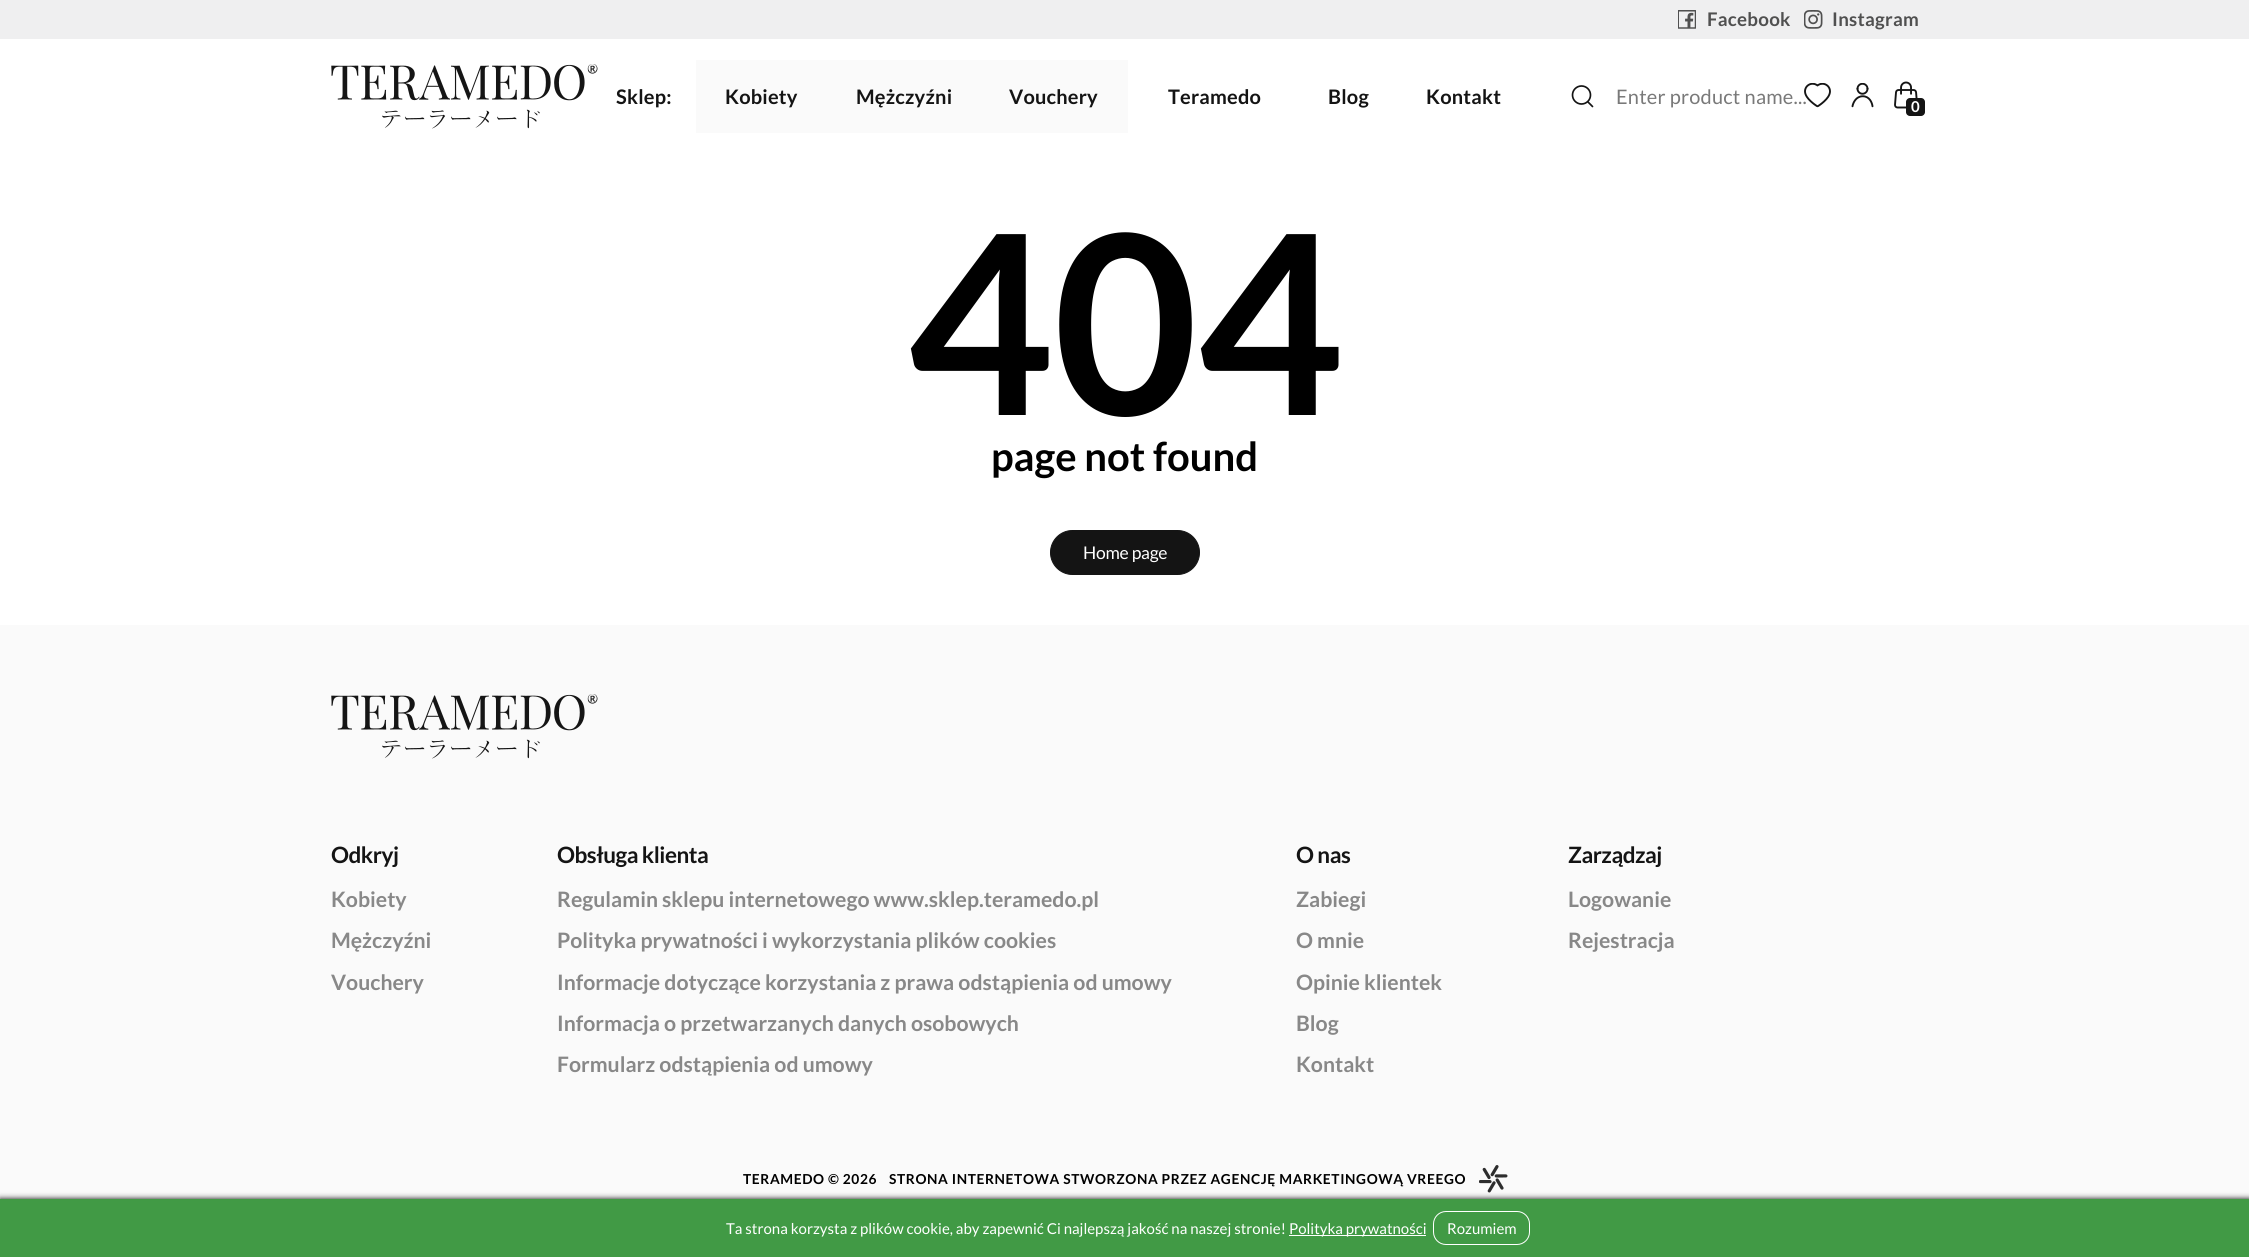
import math
import cairo


def write_spaced(ctx, x, y, s, letter, word):
	ctx.move_to(x, y)
	for ch in s:
		ctx.show_text(ch)
		ctx.rel_move_to(letter + word * (ch == ' '), 0)

def round_path(ctx, x, y, w, h, r):
	ctx.new_sub_path()
	for i, (u, v) in enumerate([(x + w - r, y + h - r), (x + r, y + h - r), (x + r, y + r), (x + w - r, y + r)]):
		ctx.arc(u, v, r, i * math.pi / 2, (i + 1) * math.pi / 2)
	ctx.close_path()

def blur_box(ctx, x, y, w, h, r, blur, alpha):
	ctx.push_group_with_content(cairo.CONTENT_ALPHA)
	ctx.set_operator(cairo.OPERATOR_SOURCE)
	for i in range(15, -16, -2):
		e = blur * i / 6
		if min(w, h) + 2 * e > 0:
			ctx.set_source_rgba(0, 0, 0, alpha * math.erfc((i - 1) / 8.5) / 2)
			round_path(ctx, x - e, y - e, w + 2 * e, h + 2 * e, max(0, min(r + e + blur * .6, min(w, h) / 2 + e)))
			ctx.fill()
	ctx.mask(ctx.pop_group())

def paste(ctx, path, x, y, w, h):
	ctx.save()
	ctx.set_source_surface(cairo.ImageSurface.create_from_png(path), x, y)
	ctx.rectangle(x, y, w, h)
	ctx.fill()
	ctx.restore()

def draw(ctx):
	ctx.set_source_rgb(1, 1, 1)
	ctx.paint()
	ctx.set_source_rgb(0.937, 0.937, 0.941)
	ctx.rectangle(0, 0, 2249, 39)
	ctx.fill()
	paste(ctx, 'media/1.png', 1678, 10, 18, 19)
	ctx.select_font_face('Lato', cairo.FONT_SLANT_NORMAL, cairo.FONT_WEIGHT_BOLD)
	ctx.set_font_size(18.75)
	ctx.set_source_rgb(0.314, 0.314, 0.314)
	write_spaced(ctx, 1707, 26, 'Facebook', 0.25, 0)
	paste(ctx, 'media/2.png', 1804, 10, 19, 19)
	write_spaced(ctx, 1832, 26, 'Instagram', 0.25, 0)
	paste(ctx, 'media/3.png', 331, 64, 267, 65)
	ctx.set_font_size(20)
	ctx.set_source_rgb(0.082, 0.082, 0.082)
	write_spaced(ctx, 616, 104, 'Sklep:', 0.2, 0)
	ctx.set_source_rgb(0.98, 0.98, 0.98)
	ctx.rectangle(696, 60, 432, 73)
	ctx.fill()
	ctx.set_source_rgb(0.082, 0.082, 0.082)
	for x, y, s in [
		(725, 104, 'Kobiety'),
		(856, 104, 'Mężczyźni'),
		(1009, 104, 'Vouchery'),
		(1168, 104, 'Teramedo'),
		(1328, 104, 'Blog'),
		(1426, 104, 'Kontakt'),
	]:
		write_spaced(ctx, x, y, s, 0.2, 0)
	ctx.new_path()
	ctx.arc(1581.5, 95, 9, 0, 2 * math.pi)
	ctx.set_line_width(1.7)
	ctx.stroke()
	ctx.new_path()
	ctx.move_to(1588, 102)
	ctx.line_to(1592.5, 106.5)
	ctx.set_line_cap(cairo.LINE_CAP_ROUND)
	ctx.set_line_join(cairo.LINE_JOIN_ROUND)
	ctx.stroke()
	paste(ctx, 'media/4.png', 1804, 83, 27, 25)
	ctx.select_font_face('Lato')
	ctx.set_source_rgb(0.475, 0.475, 0.475)
	write_spaced(ctx, 1616, 104, 'Enter product name...', 0.2, 0)
	paste(ctx, 'media/5.png', 1851, 83, 23, 25)
	paste(ctx, 'media/6.png', 1894, 81, 24, 28)
	ctx.set_source_rgb(0.082, 0.082, 0.082)
	round_path(ctx, 1906, 98, 19, 18, 4)
	ctx.fill()
	ctx.select_font_face('Lato', cairo.FONT_SLANT_NORMAL, cairo.FONT_WEIGHT_BOLD)
	ctx.set_font_size(15)
	ctx.set_source_rgb(1, 1, 1)
	ctx.move_to(1911, 112)
	ctx.show_text('0')
	ctx.set_font_size(250)
	ctx.set_source_rgb(0, 0, 0)
	ctx.move_to(908, 415)
	ctx.show_text('404')
	ctx.set_font_size(40)
	ctx.move_to(991, 471)
	ctx.show_text('page not found')
	ctx.set_source_rgb(0.082, 0.082, 0.082)
	round_path(ctx, 1050.5, 530.5, 149, 44, 22)
	ctx.fill_preserve()
	ctx.set_line_width(1)
	ctx.set_line_cap(cairo.LINE_CAP_BUTT)
	ctx.set_line_join(cairo.LINE_JOIN_MITER)
	ctx.stroke()
	ctx.select_font_face('Lato')
	ctx.set_font_size(17.5)
	ctx.set_source_rgb(1, 1, 1)
	write_spaced(ctx, 1083, 559, 'Home page', -0.25, 0)
	ctx.set_source_rgb(0.98, 0.98, 0.98)
	ctx.rectangle(0, 625, 2249, 574)
	ctx.fill()
	paste(ctx, 'media/7.png', 331, 694, 267, 65)
	ctx.select_font_face('Lato', cairo.FONT_SLANT_NORMAL, cairo.FONT_WEIGHT_BOLD)
	ctx.set_font_size(22.5)
	ctx.set_source_rgb(0.082, 0.082, 0.082)
	write_spaced(ctx, 331, 863, 'Odkryj', -0.5, 0)
	ctx.set_font_size(21.25)
	ctx.set_source_rgb(0.533, 0.533, 0.533)
	for x, y, s in [
		(331, 907, 'Kobiety'),
		(331, 948, 'Mężczyźni'),
		(331, 990, 'Vouchery'),
	]:
		ctx.move_to(x, y)
		ctx.show_text(s)
	ctx.set_font_size(22.5)
	ctx.set_source_rgb(0.082, 0.082, 0.082)
	write_spaced(ctx, 557, 863, 'Obsługa klienta', -0.5, 0)
	ctx.set_font_size(21.25)
	ctx.set_source_rgb(0.533, 0.533, 0.533)
	for x, y, s in [
		(557, 907, 'Regulamin sklepu internetowego www.sklep.teramedo.pl'),
		(557, 948, 'Polityka prywatności i wykorzystania plików cookies'),
		(557, 990, 'Informacje dotyczące korzystania z prawa odstąpienia od umowy'),
		(557, 1031, 'Informacja o przetwarzanych danych osobowych'),
		(557, 1072, 'Formularz odstąpienia od umowy'),
	]:
		ctx.move_to(x, y)
		ctx.show_text(s)
	ctx.set_font_size(22.5)
	ctx.set_source_rgb(0.082, 0.082, 0.082)
	write_spaced(ctx, 1296, 863, 'O nas', -0.5, 0)
	ctx.set_font_size(21.25)
	ctx.set_source_rgb(0.533, 0.533, 0.533)
	for x, y, s in [
		(1296, 907, 'Zabiegi'),
		(1296, 948, 'O mnie'),
		(1296, 990, 'Opinie klientek'),
		(1296, 1031, 'Blog'),
		(1296, 1072, 'Kontakt'),
	]:
		ctx.move_to(x, y)
		ctx.show_text(s)
	ctx.set_font_size(22.5)
	ctx.set_source_rgb(0.082, 0.082, 0.082)
	write_spaced(ctx, 1568, 863, 'Zarządzaj', -0.5, 0)
	ctx.set_font_size(21.25)
	ctx.set_source_rgb(0.533, 0.533, 0.533)
	ctx.move_to(1568, 907)
	ctx.show_text('Logowanie')
	ctx.move_to(1568, 948)
	ctx.show_text('Rejestracja')
	ctx.set_font_size(13.75)
	ctx.set_source_rgb(0, 0, 0)
	write_spaced(ctx, 743, 1184, 'TERAMEDO © 2026', 0.62, 0)
	write_spaced(ctx, 889, 1184, 'STRONA INTERNETOWA STWORZONA PRZEZ AGENCJĘ MARKETINGOWĄ VREEGO', 0.62, 0)
	paste(ctx, 'media/8.png', 1479, 1165, 29, 28)
	ctx.set_source_rgb(0, 0, 0)
	blur_box(ctx, 0, 1199, 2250, 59, 0, 3, 1)
	ctx.set_source_rgb(0.255, 0.604, 0.271)
	ctx.rectangle(0, 1199, 2249, 58)
	ctx.fill()
	ctx.select_font_face('Lato')
	ctx.set_font_size(15)
	ctx.set_source_rgb(1, 1, 1)
	ctx.move_to(726, 1234)
	ctx.show_text('Ta strona korzysta z plików cookie, aby zapewnić Ci najlepszą jakość na naszej stronie!')
	ctx.rectangle(1289, 1235, 137, 1)
	ctx.fill()
	ctx.move_to(1289, 1234)
	ctx.show_text('Polityka prywatności')
	round_path(ctx, 1433.5, 1211.5, 96, 33, 12.5)
	ctx.stroke()
	ctx.move_to(1447, 1234)
	ctx.show_text('Rozumiem')


surface = cairo.ImageSurface(cairo.FORMAT_RGB24, 2249, 1257)
ctx = cairo.Context(surface)
options = cairo.FontOptions()
options.set_hint_metrics(cairo.HINT_METRICS_OFF)
options.set_hint_style(cairo.HINT_STYLE_NONE)
ctx.set_font_options(options)
ctx.set_miter_limit(4)
draw(ctx)
surface.write_to_png('image.png')
